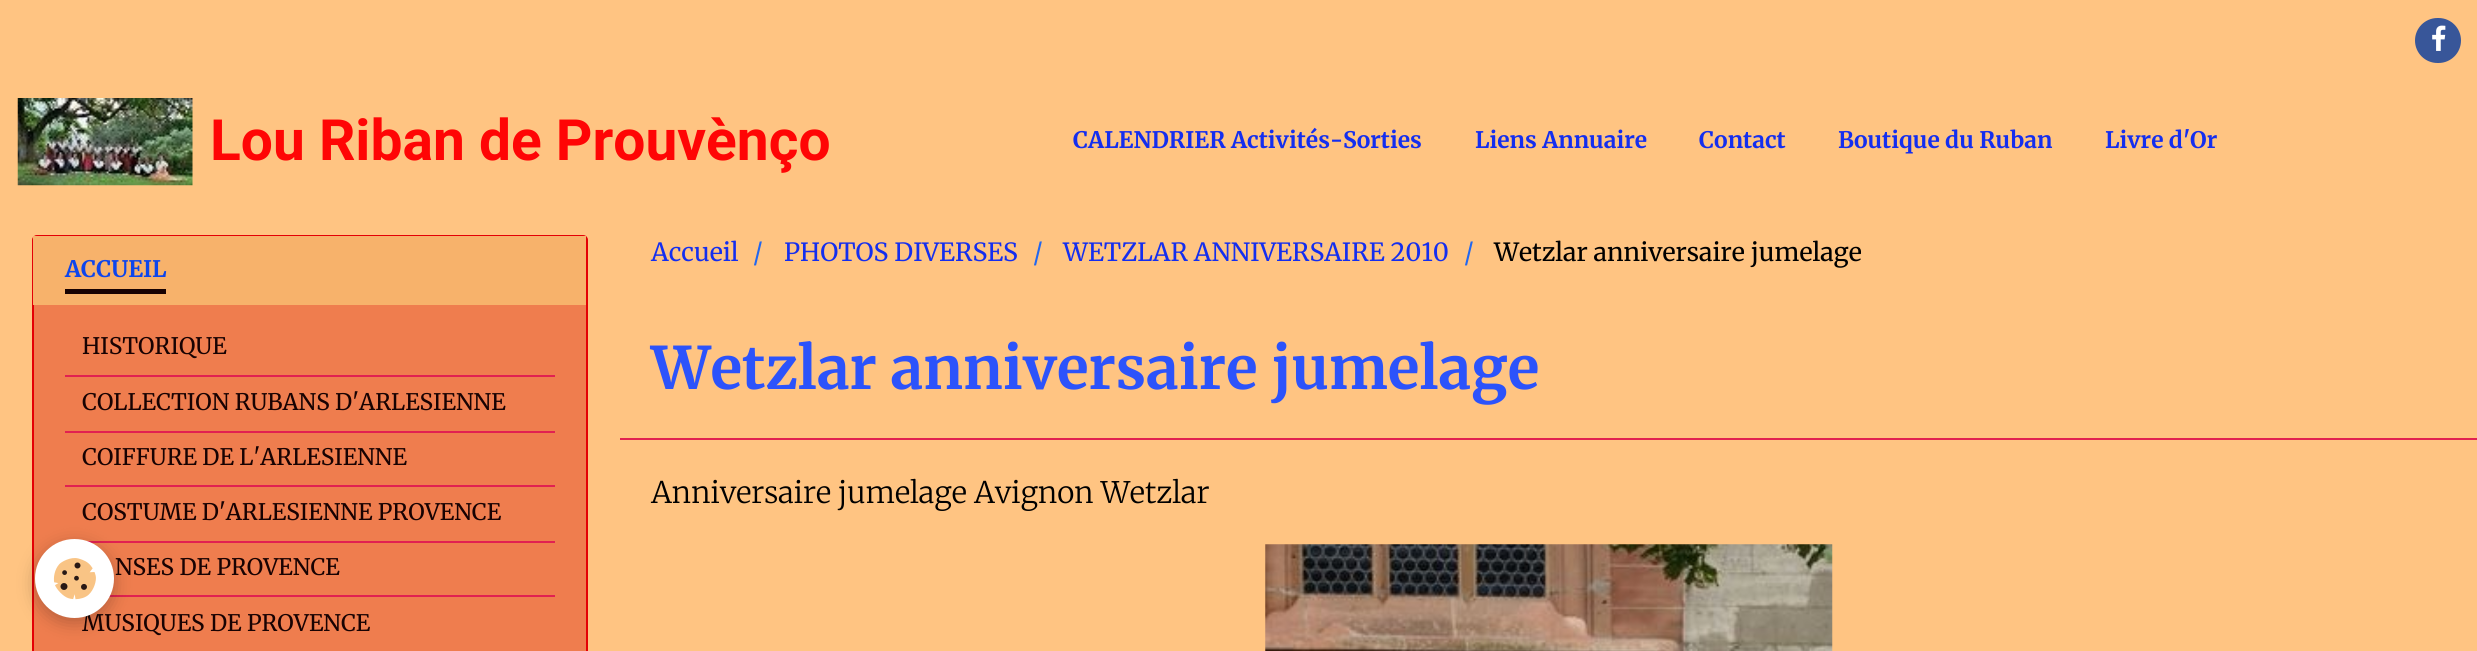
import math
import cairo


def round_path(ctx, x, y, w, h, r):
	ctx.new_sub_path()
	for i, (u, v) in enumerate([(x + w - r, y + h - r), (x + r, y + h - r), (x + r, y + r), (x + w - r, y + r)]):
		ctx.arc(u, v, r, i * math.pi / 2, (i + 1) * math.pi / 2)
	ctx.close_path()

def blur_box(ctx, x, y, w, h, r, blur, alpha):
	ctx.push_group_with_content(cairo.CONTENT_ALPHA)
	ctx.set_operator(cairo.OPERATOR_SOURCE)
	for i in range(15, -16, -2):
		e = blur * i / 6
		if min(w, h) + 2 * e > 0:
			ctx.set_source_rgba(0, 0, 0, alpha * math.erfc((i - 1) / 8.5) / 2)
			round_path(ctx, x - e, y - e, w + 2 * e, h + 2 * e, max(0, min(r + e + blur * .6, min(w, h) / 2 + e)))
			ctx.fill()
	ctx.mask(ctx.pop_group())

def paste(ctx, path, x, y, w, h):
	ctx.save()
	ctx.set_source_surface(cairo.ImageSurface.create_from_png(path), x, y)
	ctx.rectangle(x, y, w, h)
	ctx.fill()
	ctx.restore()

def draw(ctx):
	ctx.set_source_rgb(1, 0.769, 0.51)
	ctx.paint()
	ctx.set_source_rgb(0.22, 0.337, 0.6)
	round_path(ctx, 2415, 18, 46, 45, 22.5)
	ctx.fill()
	paste(ctx, 'media/1.png', 2432, 25, 14, 26)
	paste(ctx, 'media/2.png', 17, 98, 176, 88)
	ctx.select_font_face('Roboto', cairo.FONT_SLANT_NORMAL, cairo.FONT_WEIGHT_BOLD)
	ctx.set_font_size(56.9)
	ctx.set_source_rgb(1, 0.02, 0.02)
	ctx.move_to(210, 160)
	ctx.show_text('Lou Riban de Prouvènço')
	ctx.select_font_face('Merriweather', cairo.FONT_SLANT_NORMAL, cairo.FONT_WEIGHT_BOLD)
	ctx.set_font_size(22.75)
	ctx.set_source_rgb(0.082, 0.18, 0.937)
	for x, y, s in [
		(1073, 148, 'CALENDRIER Activités-Sorties'),
		(1475, 148, 'Liens Annuaire'),
		(1699, 148, 'Contact'),
		(1838, 148, 'Boutique du Ruban'),
		(2105, 148, 'Livre d\'Or'),
	]:
		ctx.move_to(x, y)
		ctx.show_text(s)
	ctx.set_source_rgb(0.937, 0.49, 0.306)
	round_path(ctx, 33, 236, 554, 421, 4)
	ctx.fill_preserve()
	ctx.set_source_rgb(0.894, 0, 0.02)
	ctx.stroke()
	ctx.set_source_rgb(0.965, 0.698, 0.42)
	ctx.rectangle(33, 236, 553, 69)
	ctx.fill()
	ctx.set_source_rgb(0.051, 0.271, 0.922)
	ctx.move_to(65, 277)
	ctx.show_text('ACCUEIL')
	ctx.set_source_rgb(0.094, 0.008, 0.008)
	ctx.rectangle(65, 289, 101, 5)
	ctx.fill()
	ctx.set_source_rgb(0.882, 0.129, 0.318)
	ctx.rectangle(65, 375, 490, 2)
	ctx.fill()
	ctx.select_font_face('Merriweather')
	ctx.set_source_rgb(0.094, 0.008, 0.008)
	ctx.move_to(82, 354)
	ctx.show_text('HISTORIQUE')
	ctx.set_source_rgb(0.882, 0.129, 0.318)
	ctx.rectangle(65, 431, 490, 2)
	ctx.fill()
	ctx.set_source_rgb(0.094, 0.008, 0.008)
	ctx.move_to(82, 410)
	ctx.show_text('COLLECTION RUBANS D\'ARLESIENNE')
	ctx.set_source_rgb(0.882, 0.129, 0.318)
	ctx.rectangle(65, 485, 490, 2)
	ctx.fill()
	ctx.set_source_rgb(0.094, 0.008, 0.008)
	ctx.move_to(82, 465)
	ctx.show_text('COIFFURE DE L\'ARLESIENNE')
	ctx.set_source_rgb(0.882, 0.129, 0.318)
	ctx.rectangle(87, 541, 468, 2)
	ctx.fill()
	ctx.set_source_rgb(0.094, 0.008, 0.008)
	ctx.move_to(82, 520)
	ctx.show_text('COSTUME D\'ARLESIENNE PROVENCE')
	ctx.set_source_rgb(0.882, 0.129, 0.318)
	ctx.rectangle(109, 595, 446, 2)
	ctx.fill()
	ctx.set_source_rgb(0.094, 0.008, 0.008)
	ctx.move_to(115, 575)
	ctx.show_text('NSES DE PROVENCE')
	ctx.move_to(82, 631)
	ctx.show_text('MUSIQUES DE PROVENCE')
	ctx.set_font_size(25)
	ctx.set_source_rgb(0.082, 0.18, 0.937)
	ctx.move_to(651, 261)
	ctx.show_text('Accueil')
	ctx.set_source_rgb(0.129, 0.404, 0.941)
	ctx.move_to(753, 261)
	ctx.show_text('/')
	ctx.set_source_rgb(0.082, 0.18, 0.937)
	ctx.move_to(784, 261)
	ctx.show_text('PHOTOS DIVERSES')
	ctx.set_source_rgb(0.129, 0.404, 0.941)
	ctx.move_to(1033, 261)
	ctx.show_text('/')
	ctx.set_source_rgb(0.082, 0.18, 0.937)
	ctx.move_to(1063, 261)
	ctx.show_text('WETZLAR ANNIVERSAIRE 2010')
	ctx.set_source_rgb(0.129, 0.404, 0.941)
	ctx.move_to(1464, 261)
	ctx.show_text('/')
	ctx.set_source_rgb(0, 0, 0)
	ctx.move_to(1494, 261)
	ctx.show_text('Wetzlar anniversaire jumelage')
	ctx.set_source_rgb(0.882, 0.129, 0.318)
	ctx.rectangle(620, 438, 1857, 2)
	ctx.fill()
	ctx.select_font_face('Merriweather', cairo.FONT_SLANT_NORMAL, cairo.FONT_WEIGHT_BOLD)
	ctx.set_font_size(58.5)
	ctx.set_source_rgb(0.173, 0.325, 0.984)
	ctx.move_to(651, 389)
	ctx.show_text('Wetzlar anniversaire jumelage')
	ctx.select_font_face('Merriweather Light')
	ctx.set_font_size(29.6)
	ctx.set_source_rgb(0, 0, 0)
	ctx.move_to(651, 503)
	ctx.show_text('Anniversaire jumelage Avignon Wetzlar')
	paste(ctx, 'media/3.png', 1265, 544, 568, 107)
	ctx.set_source_rgb(0, 0, 0)
	blur_box(ctx, 35, 544, 79, 79, 39.5, 9, 0.24)
	ctx.set_source_rgb(1, 1, 1)
	ctx.arc(74.5, 578.5, 39.5, 0, 2 * math.pi)
	ctx.fill()
	paste(ctx, 'media/4.png', 53, 558, 43, 42)


surface = cairo.ImageSurface(cairo.FORMAT_RGB24, 2477, 651)
ctx = cairo.Context(surface)
options = cairo.FontOptions()
options.set_hint_metrics(cairo.HINT_METRICS_OFF)
options.set_hint_style(cairo.HINT_STYLE_NONE)
ctx.set_font_options(options)
ctx.set_miter_limit(4)
draw(ctx)
surface.write_to_png('image.png')
